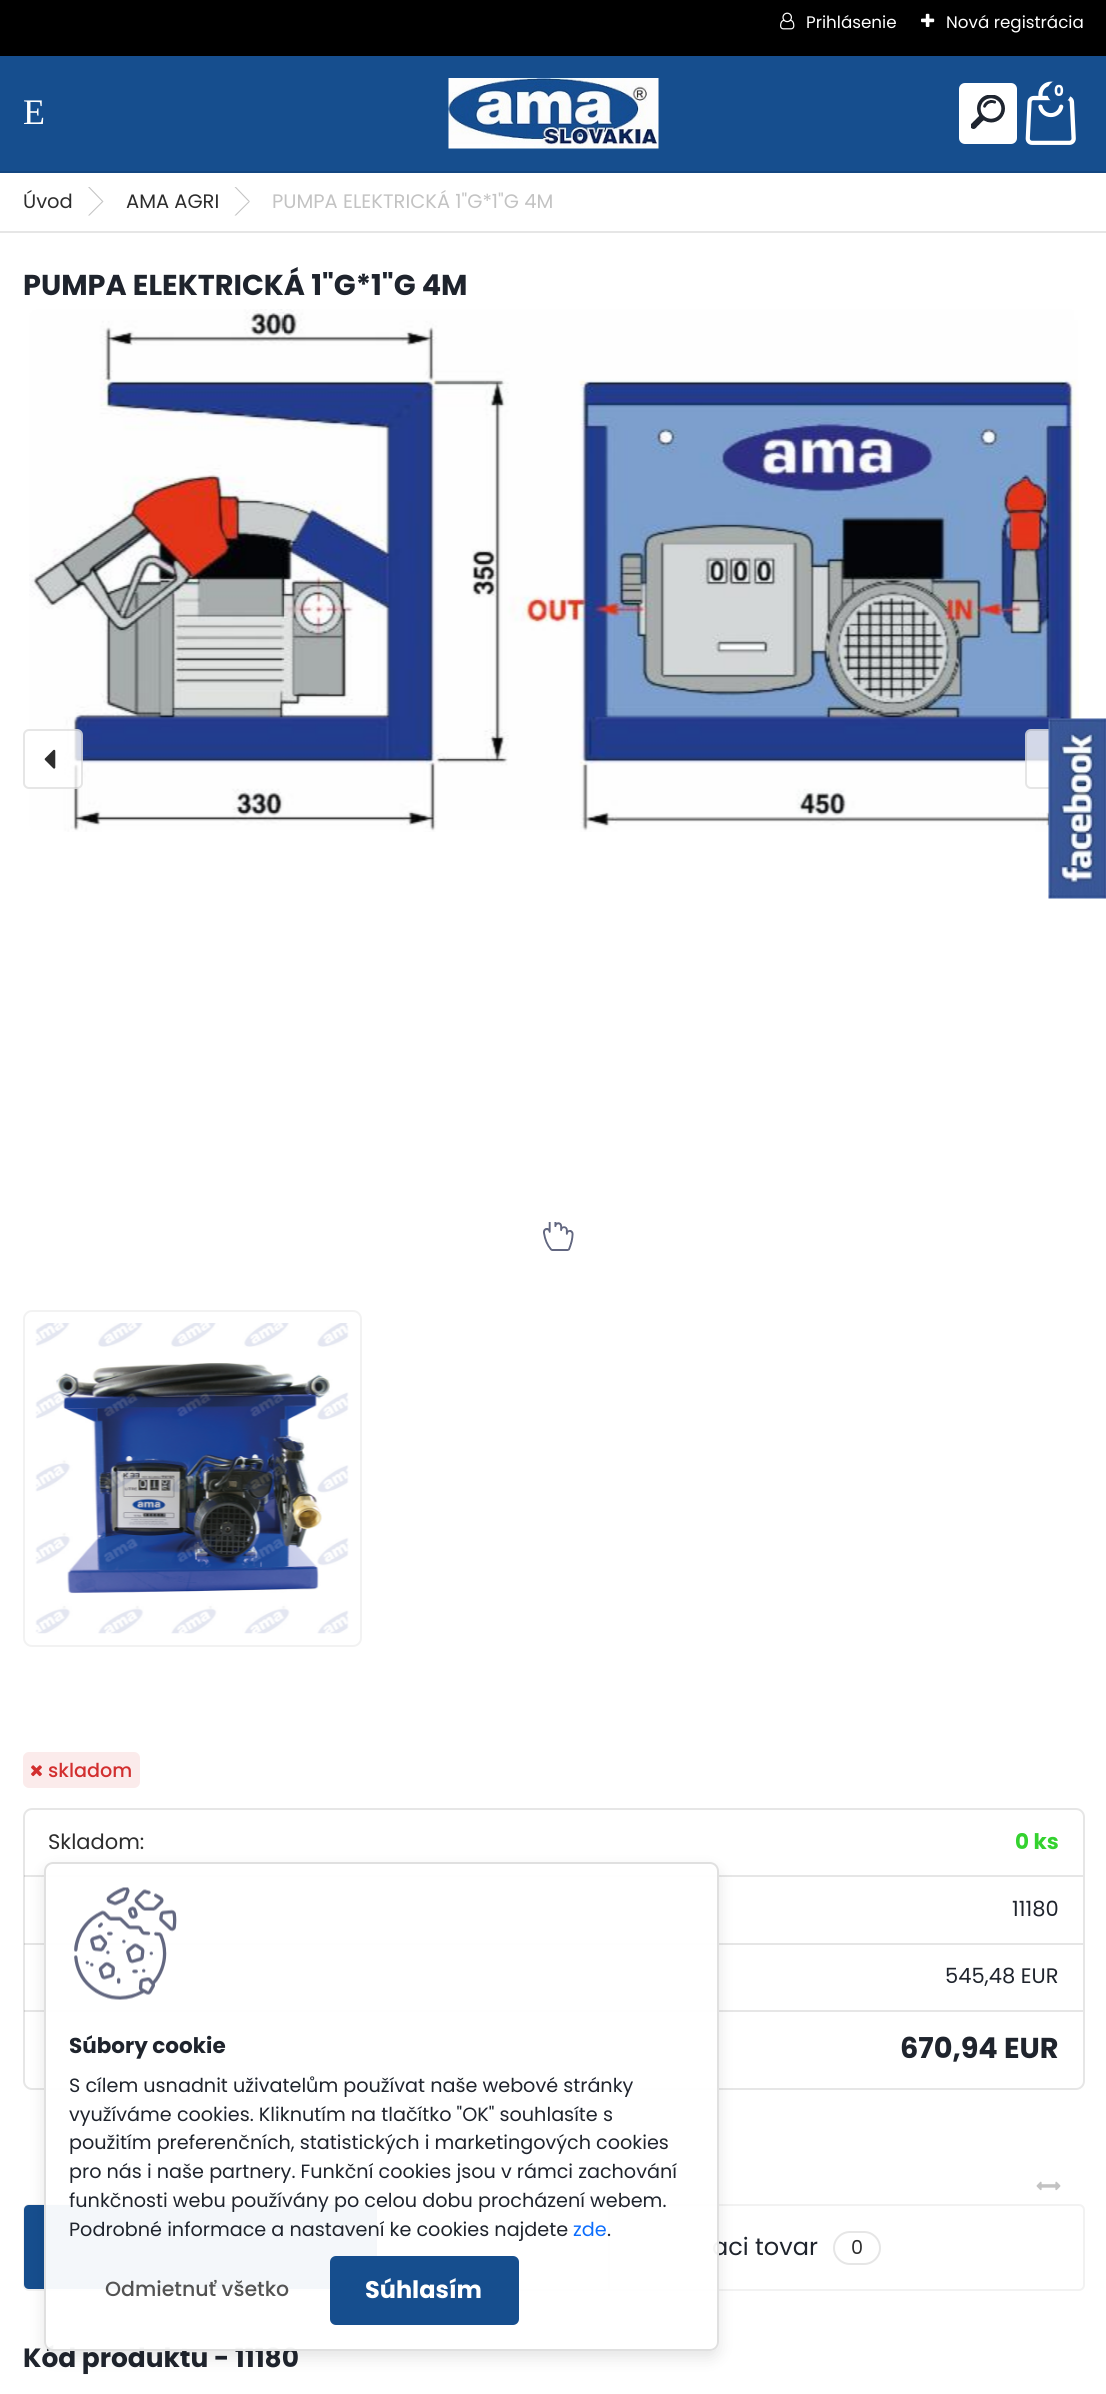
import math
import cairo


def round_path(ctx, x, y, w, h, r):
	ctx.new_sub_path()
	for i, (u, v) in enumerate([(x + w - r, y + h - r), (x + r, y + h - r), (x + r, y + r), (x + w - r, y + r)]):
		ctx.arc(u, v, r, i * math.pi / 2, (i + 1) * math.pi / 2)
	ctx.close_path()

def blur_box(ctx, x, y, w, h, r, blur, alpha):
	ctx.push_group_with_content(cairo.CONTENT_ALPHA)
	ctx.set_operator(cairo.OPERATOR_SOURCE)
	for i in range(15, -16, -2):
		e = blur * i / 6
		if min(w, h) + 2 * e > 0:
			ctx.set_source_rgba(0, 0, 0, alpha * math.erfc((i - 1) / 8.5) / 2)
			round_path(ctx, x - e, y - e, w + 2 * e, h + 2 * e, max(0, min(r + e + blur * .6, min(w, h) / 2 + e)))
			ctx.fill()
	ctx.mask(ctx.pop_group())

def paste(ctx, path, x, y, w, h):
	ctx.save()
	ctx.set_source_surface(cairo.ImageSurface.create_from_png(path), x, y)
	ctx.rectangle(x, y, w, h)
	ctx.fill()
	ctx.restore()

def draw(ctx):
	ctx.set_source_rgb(1, 1, 1)
	ctx.paint()
	ctx.set_source_rgb(0, 0, 0)
	ctx.rectangle(0, 0, 1106, 56)
	ctx.fill()
	paste(ctx, 'media/1.png', 780, 12, 15, 18)
	ctx.select_font_face('Poppins')
	ctx.set_font_size(16.75)
	ctx.set_source_rgb(1, 1, 1)
	ctx.move_to(806, 28)
	ctx.show_text('Prihlásenie')
	paste(ctx, 'media/2.png', 921, 13, 14, 14)
	ctx.move_to(946, 28)
	ctx.show_text('Nová registrácia')
	ctx.set_source_rgb(0.086, 0.306, 0.557)
	ctx.rectangle(0, 56, 1106, 115)
	ctx.fill()
	ctx.set_source_rgb(0.078, 0.275, 0.502)
	ctx.rectangle(0, 171, 1106, 2)
	ctx.fill()
	paste(ctx, 'media/3.png', 448, 78, 211, 71)
	ctx.set_source_rgb(1, 1, 1)
	round_path(ctx, 959, 83, 58, 61, 6)
	ctx.fill()
	paste(ctx, 'media/4.png', 971, 95, 34, 34)
	paste(ctx, 'media/5.png', 1025, 81, 51, 64)
	ctx.set_source_rgb(0.086, 0.306, 0.557)
	ctx.arc(1059, 92, 12, 0, 2 * math.pi)
	ctx.fill()
	ctx.select_font_face('Poppins', cairo.FONT_SLANT_NORMAL, cairo.FONT_WEIGHT_BOLD)
	ctx.set_font_size(15)
	ctx.set_source_rgb(1, 1, 1)
	ctx.move_to(1054, 96)
	ctx.show_text('0')
	ctx.select_font_face('Liberation Serif')
	ctx.set_font_size(36)
	ctx.move_to(23, 124)
	ctx.show_text('E')
	ctx.set_source_rgb(0.902, 0.902, 0.902)
	ctx.rectangle(0, 231, 1106, 2)
	ctx.fill()
	ctx.select_font_face('Poppins')
	ctx.set_font_size(19.5)
	ctx.set_source_rgb(0.176, 0.176, 0.176)
	ctx.move_to(23, 208)
	ctx.show_text('Úvod')
	ctx.set_source_rgb(0.765, 0.765, 0.765)
	ctx.new_path()
	ctx.move_to(88, 187)
	ctx.line_to(89.5, 187)
	ctx.line_to(103.5, 201.5)
	ctx.line_to(102, 201.5)
	ctx.close_path()
	ctx.fill()
	ctx.set_source_rgba(0.216, 0.216, 0.216, 0.3)
	ctx.new_path()
	ctx.move_to(102, 201.5)
	ctx.line_to(103.5, 201.5)
	ctx.line_to(89.5, 215.5)
	ctx.line_to(88, 215.5)
	ctx.close_path()
	ctx.fill()
	ctx.set_source_rgb(0.176, 0.176, 0.176)
	ctx.move_to(126, 208)
	ctx.show_text('AMA AGRI')
	ctx.set_source_rgb(0.765, 0.765, 0.765)
	ctx.new_path()
	ctx.move_to(234.5, 187)
	ctx.line_to(236, 187)
	ctx.line_to(250, 201.5)
	ctx.line_to(248.5, 201.5)
	ctx.close_path()
	ctx.fill()
	ctx.new_path()
	ctx.move_to(248.5, 201.5)
	ctx.line_to(250, 201.5)
	ctx.line_to(236, 215.5)
	ctx.line_to(234.5, 215.5)
	ctx.close_path()
	ctx.fill()
	ctx.move_to(272, 208)
	ctx.show_text('PUMPA ELEKTRICKÁ 1"G*1"G 4M')
	ctx.select_font_face('Poppins', cairo.FONT_SLANT_NORMAL, cairo.FONT_WEIGHT_BOLD)
	ctx.set_font_size(28.75)
	ctx.set_source_rgb(0.122, 0.141, 0.176)
	ctx.move_to(23, 295)
	ctx.show_text('PUMPA ELEKTRICKÁ 1"G*1"G 4M')
	paste(ctx, 'media/6.png', 29, 309, 1050, 523)
	ctx.set_source_rgba(1, 1, 1, 0.8)
	round_path(ctx, 23, 729, 60, 60, 6)
	ctx.fill()
	round_path(ctx, 24, 730, 58, 58, 5)
	ctx.set_source_rgba(0, 0, 0, 0.1)
	ctx.stroke()
	paste(ctx, 'media/7.png', 44, 749, 12, 20)
	ctx.set_source_rgba(1, 1, 1, 0.8)
	round_path(ctx, 1025, 729, 60, 60, 6)
	ctx.fill()
	round_path(ctx, 1026, 730, 58, 58, 5)
	ctx.set_source_rgba(0, 0, 0, 0.1)
	ctx.stroke()
	paste(ctx, 'media/8.png', 543, 1222, 31, 29)
	round_path(ctx, 24, 1311, 337, 335, 8)
	ctx.set_source_rgb(0.949, 0.949, 0.949)
	ctx.stroke()
	paste(ctx, 'media/9.png', 35, 1323, 314, 311)
	ctx.set_source_rgb(0.984, 0.918, 0.918)
	round_path(ctx, 23, 1752, 117, 36, 6)
	ctx.fill()
	paste(ctx, 'media/10.png', 31, 1765, 11, 12)
	ctx.select_font_face('Poppins Medium')
	ctx.set_font_size(19.2)
	ctx.set_source_rgb(0.824, 0.184, 0.184)
	ctx.move_to(48, 1777)
	ctx.show_text('skladom')
	round_path(ctx, 24, 1809, 1060, 280, 8)
	ctx.set_source_rgb(0.902, 0.902, 0.902)
	ctx.stroke()
	ctx.set_source_rgba(0, 0, 0, 0.1)
	ctx.rectangle(24, 1875, 1059, 2)
	ctx.fill()
	ctx.select_font_face('Poppins')
	ctx.set_font_size(21)
	ctx.set_source_rgb(0.176, 0.176, 0.176)
	ctx.move_to(48, 1849)
	ctx.show_text('Skladom:')
	ctx.select_font_face('Poppins', cairo.FONT_SLANT_NORMAL, cairo.FONT_WEIGHT_BOLD)
	ctx.set_font_size(21.5)
	ctx.set_source_rgb(0.204, 0.824, 0.184)
	ctx.move_to(1015, 1849)
	ctx.show_text('0 ks')
	ctx.set_source_rgba(0, 0, 0, 0.1)
	ctx.rectangle(24, 1943, 1059, 2)
	ctx.fill()
	ctx.select_font_face('Poppins')
	ctx.set_font_size(21)
	ctx.set_source_rgb(0.122, 0.141, 0.176)
	ctx.move_to(1012, 1916)
	ctx.show_text('11180')
	ctx.set_source_rgba(0, 0, 0, 0.1)
	ctx.rectangle(24, 2010, 1059, 2)
	ctx.fill()
	ctx.set_source_rgb(0.122, 0.141, 0.176)
	ctx.move_to(945, 1983)
	ctx.show_text('545,48 EUR')
	ctx.select_font_face('Poppins', cairo.FONT_SLANT_NORMAL, cairo.FONT_WEIGHT_BOLD)
	ctx.set_font_size(28.75)
	ctx.move_to(900, 2058)
	ctx.show_text('670,94 EUR')
	paste(ctx, 'media/11.png', 1036, 2181, 25, 10)
	round_path(ctx, 24, 2205, 1060, 85, 5)
	ctx.set_source_rgb(0.949, 0.949, 0.949)
	ctx.stroke()
	ctx.set_source_rgb(0.086, 0.306, 0.557)
	ctx.new_path()
	ctx.move_to(29, 2205)
	ctx.line_to(377, 2205)
	ctx.line_to(377, 2289)
	ctx.line_to(29, 2289)
	ctx.curve_to(26, 2289, 24, 2287, 24, 2284)
	ctx.line_to(24, 2210)
	ctx.curve_to(24, 2207, 26, 2205, 29, 2205)
	ctx.close_path()
	ctx.fill()
	ctx.set_source_rgb(0.082, 0.29, 0.529)
	ctx.rectangle(375, 2205, 2, 51)
	ctx.fill()
	ctx.set_source_rgba(0, 0, 0, 0.05)
	ctx.rectangle(608, 2205, 2, 84)
	ctx.fill()
	ctx.select_font_face('Poppins')
	ctx.set_font_size(24)
	ctx.set_source_rgb(0.122, 0.141, 0.176)
	ctx.move_to(712, 2255)
	ctx.show_text('aci tovar')
	round_path(ctx, 834, 2232, 46, 32, 16)
	ctx.set_source_rgb(0.902, 0.902, 0.902)
	ctx.stroke()
	ctx.set_font_size(19.2)
	ctx.set_source_rgb(0.176, 0.176, 0.176)
	ctx.move_to(851, 2254)
	ctx.show_text('0')
	ctx.select_font_face('Poppins', cairo.FONT_SLANT_NORMAL, cairo.FONT_WEIGHT_BOLD)
	ctx.set_font_size(26.4)
	ctx.set_source_rgb(0.122, 0.141, 0.176)
	ctx.move_to(23, 2367)
	ctx.show_text('Kód produktu - 11180')
	paste(ctx, 'media/12.png', 1048, 718, 58, 181)
	ctx.save()
	ctx.set_fill_rule(cairo.FILL_RULE_EVEN_ODD)
	ctx.new_path()
	ctx.move_to(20, 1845)
	ctx.line_to(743, 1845)
	ctx.line_to(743, 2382)
	ctx.line_to(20, 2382)
	ctx.close_path()
	ctx.move_to(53, 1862)
	ctx.line_to(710, 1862)
	ctx.curve_to(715, 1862, 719, 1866, 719, 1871)
	ctx.line_to(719, 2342)
	ctx.curve_to(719, 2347, 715, 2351, 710, 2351)
	ctx.line_to(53, 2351)
	ctx.curve_to(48, 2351, 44, 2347, 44, 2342)
	ctx.line_to(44, 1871)
	ctx.curve_to(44, 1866, 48, 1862, 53, 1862)
	ctx.close_path()
	ctx.clip()
	ctx.set_source_rgb(0, 0, 0)
	blur_box(ctx, 44, 1869, 675, 489, 9, 7.5, 0.1)
	ctx.restore()
	ctx.set_source_rgba(1, 1, 1, 0.95)
	round_path(ctx, 45, 1863, 673, 487, 8)
	ctx.fill_preserve()
	ctx.set_source_rgb(0.878, 0.878, 0.878)
	ctx.stroke()
	paste(ctx, 'media/13.png', 74, 1887, 103, 113)
	ctx.set_font_size(21.5)
	ctx.set_source_rgb(0.122, 0.141, 0.176)
	ctx.move_to(69, 2053)
	ctx.show_text('Súbory cookie')
	ctx.select_font_face('Poppins')
	ctx.set_font_size(19.2)
	for x, y, s in [
		(69, 2092, 'S cílem usnadnit uživatelům používat naše webové stránky'),
		(69, 2121, 'využíváme cookies. Kliknutím na tlačítko "OK" souhlasíte s'),
		(69, 2149, 'použitím preferenčních, statistických i marketingových cookies'),
		(69, 2178, 'pro nás i naše partnery. Funkční cookies jsou v rámci zachování'),
		(69, 2207, 'funkčnosti webu používány po celou dobu procházení webem.'),
		(69, 2236, 'Podrobné informace a nastavení ke cookies najdete'),
	]:
		ctx.move_to(x, y)
		ctx.show_text(s)
	ctx.set_source_rgb(0.051, 0.431, 0.992)
	ctx.move_to(573, 2236)
	ctx.show_text('zde')
	ctx.set_source_rgb(0.122, 0.141, 0.176)
	ctx.move_to(607, 2236)
	ctx.show_text('.')
	ctx.select_font_face('Poppins Medium')
	ctx.set_font_size(20.5)
	ctx.set_source_rgb(0.325, 0.325, 0.325)
	ctx.move_to(105, 2296)
	ctx.show_text('Odmietnuť všetko')
	ctx.set_source_rgb(0.086, 0.306, 0.557)
	round_path(ctx, 330, 2256, 189, 69, 6)
	ctx.fill()
	ctx.select_font_face('Poppins', cairo.FONT_SLANT_NORMAL, cairo.FONT_WEIGHT_BOLD)
	ctx.set_font_size(24)
	ctx.set_source_rgb(1, 1, 1)
	ctx.move_to(365, 2298)
	ctx.show_text('Súhlasím')


surface = cairo.ImageSurface(cairo.FORMAT_RGB24, 1106, 2394)
ctx = cairo.Context(surface)
options = cairo.FontOptions()
options.set_hint_metrics(cairo.HINT_METRICS_OFF)
options.set_hint_style(cairo.HINT_STYLE_NONE)
ctx.set_font_options(options)
ctx.set_miter_limit(4)
draw(ctx)
surface.write_to_png('image.png')
